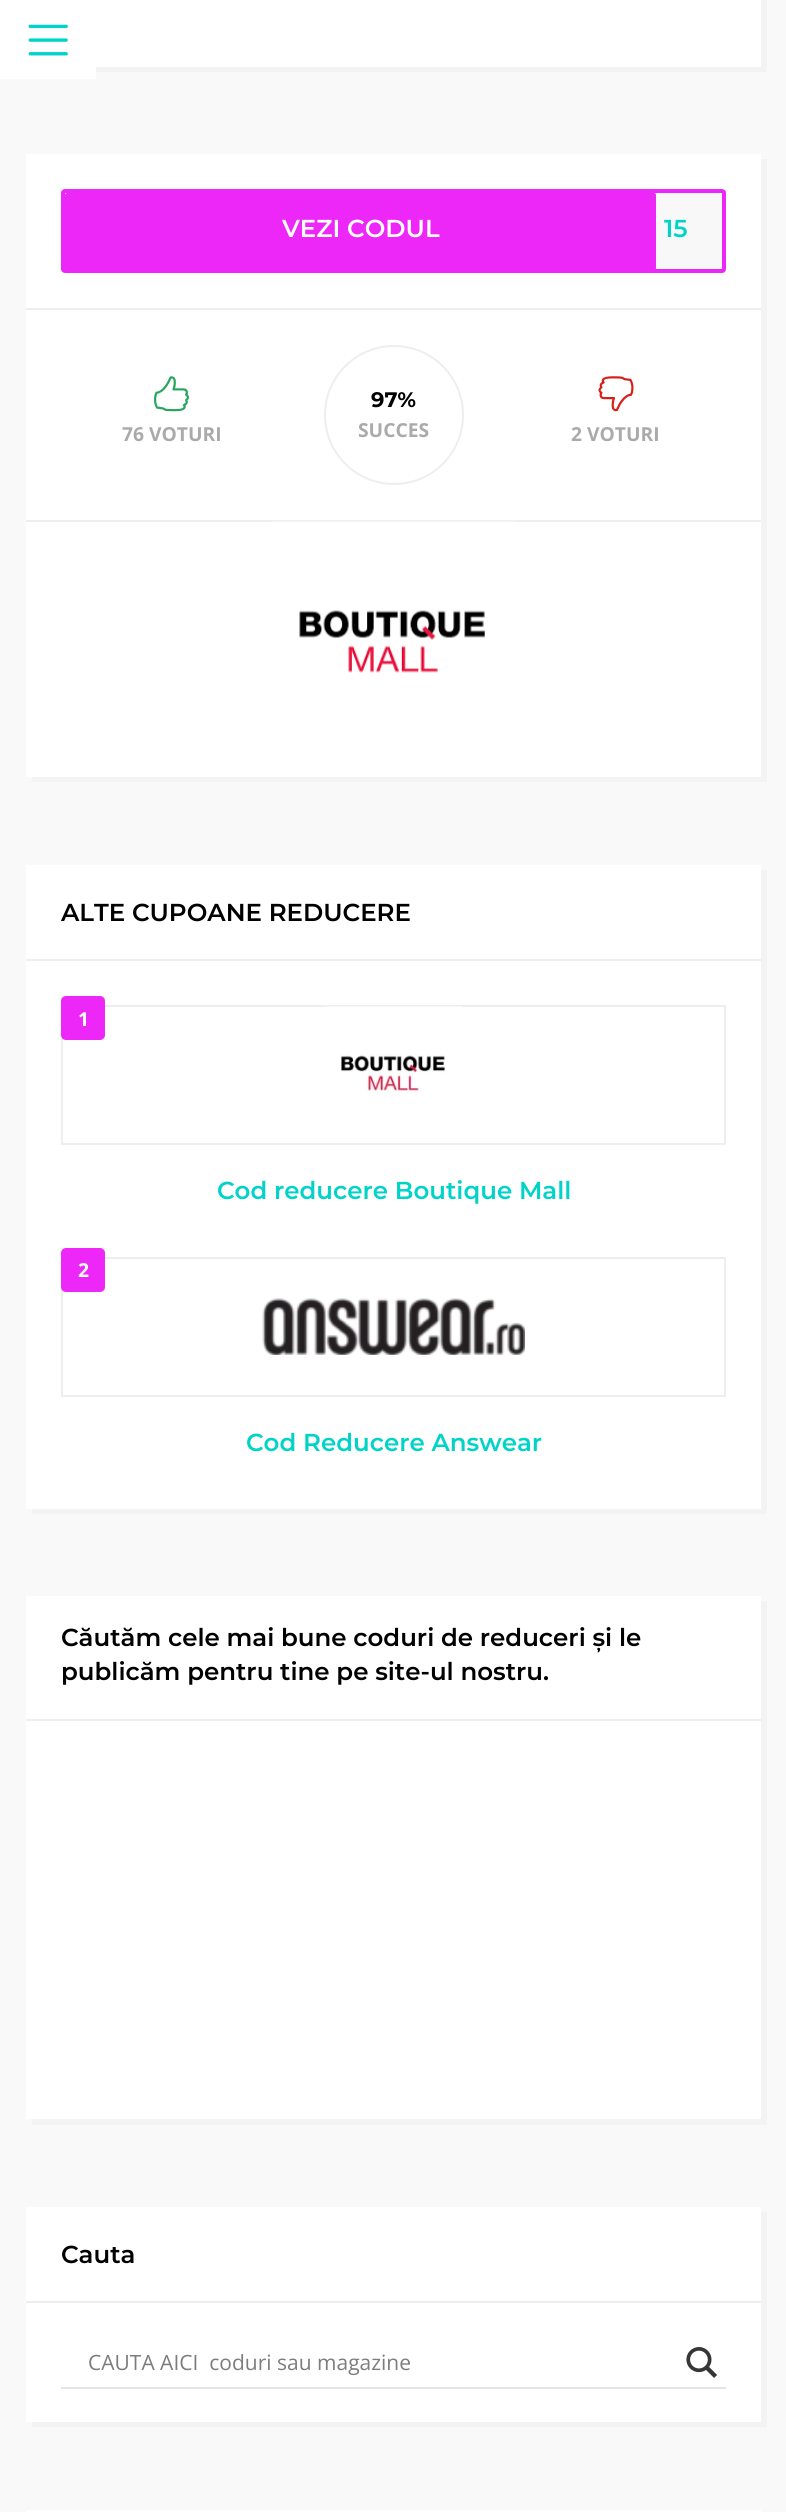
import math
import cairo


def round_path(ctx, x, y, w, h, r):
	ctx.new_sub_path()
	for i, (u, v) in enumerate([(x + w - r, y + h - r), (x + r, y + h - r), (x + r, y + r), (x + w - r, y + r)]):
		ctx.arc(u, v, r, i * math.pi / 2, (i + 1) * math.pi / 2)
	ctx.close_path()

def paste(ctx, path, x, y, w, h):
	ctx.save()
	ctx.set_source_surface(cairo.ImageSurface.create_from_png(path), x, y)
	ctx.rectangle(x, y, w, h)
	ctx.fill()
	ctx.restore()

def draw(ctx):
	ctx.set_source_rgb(0.973, 0.973, 0.973)
	ctx.paint()
	ctx.set_source_rgb(0.953, 0.953, 0.953)
	ctx.new_path()
	ctx.move_to(32, 66)
	ctx.line_to(32, 72)
	ctx.line_to(767, 72)
	ctx.line_to(767, -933)
	ctx.line_to(761, -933)
	ctx.line_to(761, 66)
	ctx.close_path()
	ctx.fill()
	ctx.set_source_rgb(1, 1, 1)
	ctx.rectangle(0, 0, 96, 79)
	ctx.fill()
	paste(ctx, 'media/1.png', 28, 24, 40, 32)
	ctx.rectangle(96, 0, 665, 67)
	ctx.fill()
	ctx.set_source_rgb(0.953, 0.953, 0.953)
	ctx.new_path()
	ctx.move_to(32, 777)
	ctx.line_to(32, 782)
	ctx.line_to(767, 782)
	ctx.line_to(767, 159)
	ctx.line_to(761, 159)
	ctx.line_to(761, 777)
	ctx.close_path()
	ctx.fill()
	ctx.set_source_rgb(1, 1, 1)
	ctx.rectangle(26, 154, 735, 623)
	ctx.fill()
	ctx.set_source_rgb(0.933, 0.933, 0.933)
	ctx.rectangle(26, 308, 735, 2)
	ctx.fill()
	round_path(ctx, 63, 191, 661, 80, 2)
	ctx.set_source_rgb(0.925, 0.153, 0.969)
	ctx.set_line_width(4)
	ctx.stroke()
	ctx.set_source_rgba(0, 0, 0, 0.03)
	ctx.rectangle(65, 193, 658, 77)
	ctx.fill()
	ctx.set_source_rgb(0.925, 0.153, 0.969)
	round_path(ctx, 65, 193, 591, 77, 2)
	ctx.fill()
	ctx.select_font_face('Montserrat SemiBold')
	ctx.set_font_size(24.5)
	ctx.set_source_rgb(1, 1, 1)
	ctx.move_to(282, 237)
	ctx.show_text('VEZI CODUL')
	ctx.set_source_rgb(0.008, 0.827, 0.788)
	ctx.move_to(664, 237)
	ctx.show_text('15')
	ctx.set_source_rgb(0.933, 0.933, 0.933)
	ctx.rectangle(26, 520, 735, 2)
	ctx.fill()
	paste(ctx, 'media/2.png', 154, 376, 35, 36)
	ctx.select_font_face('Open Sans', cairo.FONT_SLANT_NORMAL, cairo.FONT_WEIGHT_BOLD)
	ctx.set_font_size(19.25)
	ctx.set_source_rgb(0.667, 0.667, 0.667)
	ctx.move_to(122, 441)
	ctx.show_text('76 VOTURI')
	ctx.new_path()
	ctx.arc(394, 415, 69, 0, 2 * math.pi)
	ctx.set_source_rgb(0.933, 0.933, 0.933)
	ctx.set_line_width(2)
	ctx.stroke()
	ctx.select_font_face('Montserrat', cairo.FONT_SLANT_NORMAL, cairo.FONT_WEIGHT_BOLD)
	ctx.set_font_size(21)
	ctx.set_source_rgb(0, 0, 0)
	ctx.move_to(371, 407)
	ctx.show_text('97%')
	ctx.select_font_face('Open Sans', cairo.FONT_SLANT_NORMAL, cairo.FONT_WEIGHT_BOLD)
	ctx.set_font_size(19.25)
	ctx.set_source_rgb(0.667, 0.667, 0.667)
	ctx.move_to(358, 437)
	ctx.show_text('SUCCES')
	paste(ctx, 'media/3.png', 598, 376, 36, 36)
	ctx.move_to(571, 441)
	ctx.show_text('2 VOTURI')
	paste(ctx, 'media/4.png', 271, 521, 245, 152)
	ctx.set_source_rgb(0.953, 0.953, 0.953)
	ctx.new_path()
	ctx.move_to(32, 1508)
	ctx.line_to(32, 1514)
	ctx.line_to(767, 1514)
	ctx.line_to(767, 870)
	ctx.line_to(761, 870)
	ctx.line_to(761, 1508)
	ctx.close_path()
	ctx.fill()
	ctx.set_source_rgb(1, 1, 1)
	ctx.rectangle(26, 865, 735, 644)
	ctx.fill()
	ctx.set_source_rgb(0.933, 0.933, 0.933)
	ctx.rectangle(26, 959, 735, 2)
	ctx.fill()
	ctx.select_font_face('Montserrat SemiBold')
	ctx.set_font_size(24.5)
	ctx.set_source_rgb(0, 0, 0)
	ctx.move_to(61, 921)
	ctx.show_text('ALTE CUPOANE REDUCERE')
	ctx.rectangle(62, 1006, 663, 138)
	ctx.set_source_rgb(0.933, 0.933, 0.933)
	ctx.stroke()
	ctx.set_source_rgb(0.925, 0.153, 0.969)
	round_path(ctx, 61, 996, 44, 44, 5)
	ctx.fill()
	ctx.select_font_face('Open Sans', cairo.FONT_SLANT_NORMAL, cairo.FONT_WEIGHT_BOLD)
	ctx.set_font_size(19.25)
	ctx.set_source_rgb(1, 1, 1)
	ctx.move_to(78, 1026)
	ctx.show_text('1')
	paste(ctx, 'media/5.png', 325, 1006, 137, 88)
	ctx.select_font_face('Montserrat SemiBold')
	ctx.set_font_size(24.5)
	ctx.set_source_rgb(0.008, 0.827, 0.788)
	ctx.move_to(217, 1199)
	ctx.show_text('Cod reducere Boutique Mall')
	ctx.rectangle(62, 1258, 663, 138)
	ctx.set_source_rgb(0.933, 0.933, 0.933)
	ctx.stroke()
	ctx.set_source_rgb(0.925, 0.153, 0.969)
	round_path(ctx, 61, 1248, 44, 44, 5)
	ctx.fill()
	ctx.select_font_face('Open Sans', cairo.FONT_SLANT_NORMAL, cairo.FONT_WEIGHT_BOLD)
	ctx.set_font_size(19.25)
	ctx.set_source_rgb(1, 1, 1)
	ctx.move_to(78, 1277)
	ctx.show_text('2')
	paste(ctx, 'media/6.png', 262, 1298, 263, 57)
	ctx.select_font_face('Montserrat SemiBold')
	ctx.set_font_size(24.5)
	ctx.set_source_rgb(0.008, 0.827, 0.788)
	ctx.move_to(246, 1451)
	ctx.show_text('Cod Reducere Answear')
	ctx.set_source_rgb(0.953, 0.953, 0.953)
	ctx.new_path()
	ctx.move_to(32, 2119)
	ctx.line_to(32, 2125)
	ctx.line_to(767, 2125)
	ctx.line_to(767, 1601)
	ctx.line_to(761, 1601)
	ctx.line_to(761, 2119)
	ctx.close_path()
	ctx.fill()
	ctx.set_source_rgb(1, 1, 1)
	ctx.rectangle(26, 1596, 735, 523)
	ctx.fill()
	ctx.set_source_rgb(0.933, 0.933, 0.933)
	ctx.rectangle(26, 1719, 735, 2)
	ctx.fill()
	ctx.set_source_rgb(0, 0, 0)
	ctx.move_to(61, 1646)
	ctx.show_text('Căutăm cele mai bune coduri de reduceri și le')
	ctx.move_to(61, 1680)
	ctx.show_text('publicăm pentru tine pe site-ul nostru.')
	ctx.set_source_rgb(0.953, 0.953, 0.953)
	ctx.new_path()
	ctx.move_to(32, 2422)
	ctx.line_to(32, 2427)
	ctx.line_to(767, 2427)
	ctx.line_to(767, 2212)
	ctx.line_to(761, 2212)
	ctx.line_to(761, 2422)
	ctx.close_path()
	ctx.fill()
	ctx.set_source_rgb(1, 1, 1)
	ctx.rectangle(26, 2207, 735, 215)
	ctx.fill()
	ctx.set_source_rgb(0.933, 0.933, 0.933)
	ctx.rectangle(26, 2301, 735, 2)
	ctx.fill()
	ctx.set_source_rgb(0, 0, 0)
	ctx.move_to(61, 2263)
	ctx.show_text('Cauta')
	ctx.set_source_rgb(0.894, 0.894, 0.894)
	ctx.new_path()
	ctx.move_to(61, 2340)
	ctx.line_to(61, 2389)
	ctx.line_to(726, 2389)
	ctx.line_to(726, 2387)
	ctx.line_to(61, 2387)
	ctx.close_path()
	ctx.fill()
	ctx.select_font_face('Open Sans')
	ctx.set_font_size(21)
	ctx.set_source_rgb(0.49, 0.49, 0.49)
	ctx.move_to(88, 2370)
	ctx.show_text('CAUTA AICI  coduri sau magazine')
	paste(ctx, 'media/7.png', 686, 2347, 31, 31)
	ctx.set_source_rgb(1, 1, 1)
	ctx.rectangle(26, 2510, 735, 2)
	ctx.fill()


surface = cairo.ImageSurface(cairo.FORMAT_RGB24, 786, 2512)
ctx = cairo.Context(surface)
options = cairo.FontOptions()
options.set_hint_metrics(cairo.HINT_METRICS_OFF)
options.set_hint_style(cairo.HINT_STYLE_NONE)
ctx.set_font_options(options)
ctx.set_miter_limit(4)
draw(ctx)
surface.write_to_png('image.png')
